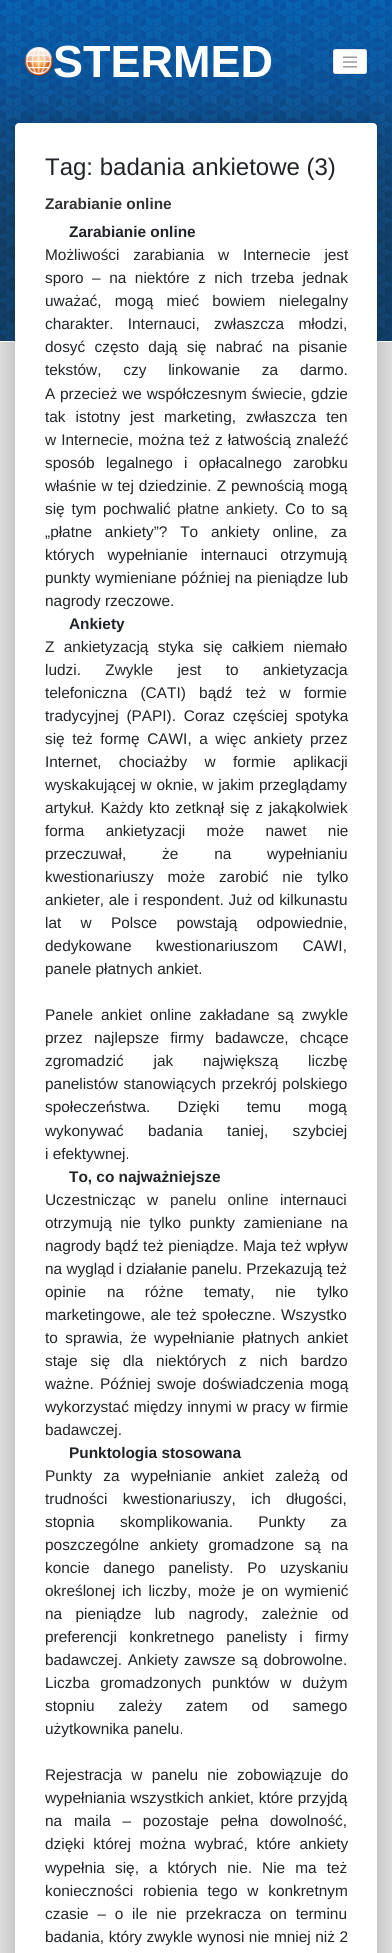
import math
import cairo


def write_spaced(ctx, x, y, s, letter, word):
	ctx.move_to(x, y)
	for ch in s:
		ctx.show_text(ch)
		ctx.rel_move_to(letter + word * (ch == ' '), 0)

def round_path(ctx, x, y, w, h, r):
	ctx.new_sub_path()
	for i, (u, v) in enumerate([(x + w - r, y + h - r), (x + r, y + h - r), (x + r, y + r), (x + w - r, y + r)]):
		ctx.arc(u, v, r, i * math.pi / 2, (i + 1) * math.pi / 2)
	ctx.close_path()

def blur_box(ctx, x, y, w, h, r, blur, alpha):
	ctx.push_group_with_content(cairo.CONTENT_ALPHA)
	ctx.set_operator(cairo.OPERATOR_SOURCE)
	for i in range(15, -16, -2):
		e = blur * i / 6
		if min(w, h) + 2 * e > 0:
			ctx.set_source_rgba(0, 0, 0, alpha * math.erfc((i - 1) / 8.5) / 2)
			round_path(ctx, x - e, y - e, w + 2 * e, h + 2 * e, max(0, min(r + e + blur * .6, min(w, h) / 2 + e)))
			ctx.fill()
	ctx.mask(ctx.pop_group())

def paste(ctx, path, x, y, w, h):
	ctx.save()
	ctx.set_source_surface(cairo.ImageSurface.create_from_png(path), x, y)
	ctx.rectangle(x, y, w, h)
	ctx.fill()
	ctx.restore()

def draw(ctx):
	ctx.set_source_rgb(0.867, 0.867, 0.867)
	ctx.paint()
	paste(ctx, 'media/1.png', 0, 0, 392, 342)
	paste(ctx, 'media/2.png', 25, 47, 28, 29)
	ctx.select_font_face('Liberation Sans', cairo.FONT_SLANT_NORMAL, cairo.FONT_WEIGHT_BOLD)
	ctx.set_font_size(45)
	ctx.set_source_rgb(1, 1, 1)
	ctx.move_to(53, 77)
	ctx.show_text('STERMED')
	round_path(ctx, 333, 49, 34, 25, 2.5)
	ctx.fill()
	round_path(ctx, 333.5, 49.5, 33, 24, 2)
	ctx.set_source_rgba(0, 0, 0, 0.1)
	ctx.set_line_width(1)
	ctx.stroke()
	paste(ctx, 'media/3.png', 342, 56, 16, 12)
	ctx.set_source_rgb(0, 0, 0)
	blur_box(ctx, 15, 123, 362, 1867, 4, 11, 0.18)
	ctx.set_source_rgb(1, 1, 1)
	round_path(ctx, 15, 123, 362, 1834, 4)
	ctx.fill()
	ctx.select_font_face('Liberation Sans')
	ctx.set_font_size(24)
	ctx.set_source_rgb(0.129, 0.145, 0.161)
	ctx.move_to(45, 175)
	ctx.show_text('Tag: badania ankietowe (3)')
	ctx.select_font_face('Liberation Sans', cairo.FONT_SLANT_NORMAL, cairo.FONT_WEIGHT_BOLD)
	ctx.set_font_size(15.4)
	ctx.set_source_rgb(0.2, 0.2, 0.2)
	ctx.move_to(45, 209)
	ctx.show_text('Zarabianie online')
	ctx.set_source_rgb(0.129, 0.145, 0.161)
	ctx.move_to(69, 237)
	ctx.show_text('Zarabianie online')
	ctx.select_font_face('Liberation Sans')
	write_spaced(ctx, 45, 260, 'Możliwości zarabiania w Internecie jest', 0, 9.5)
	write_spaced(ctx, 45, 283, 'sporo – na niektóre z nich trzeba jednak', 0, 4.25)
	write_spaced(ctx, 45, 306, 'uważać, mogą mieć bowiem nielegalny', 0, 9)
	write_spaced(ctx, 45, 329, 'charakter. Internauci, zwłaszcza młodzi,', 0, 10)
	write_spaced(ctx, 45, 352, 'dosyć często dają się nabrać na pisanie', 0, 5)
	write_spaced(ctx, 45, 375, 'tekstów, czy linkowanie za darmo.', 0, 17.5)
	write_spaced(ctx, 45, 399, 'A przecież we współczesnym świecie, gdzie', 0, 0.5)
	write_spaced(ctx, 45, 422, 'tak istotny jest marketing, zwłaszcza ten', 0, 5.75)
	write_spaced(ctx, 45, 445, 'w Internecie, można też z łatwością znaleźć', 0, 0.75)
	write_spaced(ctx, 45, 468, 'sposób legalnego i opłacalnego zarobku', 0, 7)
	write_spaced(ctx, 45, 491, 'właśnie w tej dziedzinie. Z pewnością mogą', 0, 0.75)
	write_spaced(ctx, 45, 514, 'się tym pochwalić', 0, 2.5)
	ctx.set_source_rgb(0.2, 0.2, 0.2)
	write_spaced(ctx, 177, 514, 'płatne ankiety', 0, 2.5)
	ctx.set_source_rgb(0.129, 0.145, 0.161)
	write_spaced(ctx, 274, 514, '. Co to są', 0, 2.5)
	write_spaced(ctx, 45, 537, '„płatne ankiety”? To ankiety online, za', 0, 8.5)
	write_spaced(ctx, 45, 560, 'których wypełnianie internauci otrzymują', 0, 8.5)
	write_spaced(ctx, 45, 583, 'punkty wymieniane później na pieniądze lub', 0, 0.5)
	ctx.move_to(45, 606)
	ctx.show_text('nagrody rzeczowe.')
	ctx.select_font_face('Liberation Sans', cairo.FONT_SLANT_NORMAL, cairo.FONT_WEIGHT_BOLD)
	ctx.move_to(69, 629)
	ctx.show_text('Ankiety')
	ctx.select_font_face('Liberation Sans')
	write_spaced(ctx, 45, 652, 'Z ankietyzacją styka się całkiem niemało', 0, 5)
	write_spaced(ctx, 45, 675, 'ludzi. Zwykle jest to ankietyzacja', 0, 20)
	write_spaced(ctx, 45, 698, 'telefoniczna (CATI) bądź też w formie', 0, 9)
	write_spaced(ctx, 45, 721, 'tradycyjnej (PAPI). Coraz częściej spotyka', 0, 3.5)
	write_spaced(ctx, 45, 744, 'się też formę CAWI, a więc ankiety przez', 0, 3.25)
	write_spaced(ctx, 45, 767, 'Internet, chociażby w formie aplikacji', 0, 13)
	write_spaced(ctx, 45, 790, 'wyskakującej w oknie, w jakim przeglądamy', 0, 0.5)
	write_spaced(ctx, 45, 813, 'artykuł. Każdy kto zetknął się z jakąkolwiek', 0, 1.5)
	write_spaced(ctx, 45, 836, 'forma ankietyzacji może nawet nie', 0, 17)
	write_spaced(ctx, 45, 859, 'przeczuwał, że na wypełnianiu', 0, 31.5)
	write_spaced(ctx, 45, 882, 'kwestionariuszy może zarobić nie tylko', 0, 9.5)
	write_spaced(ctx, 45, 905, 'ankieter, ale i respondent. Już od kilkunastu', 0, 0.5)
	write_spaced(ctx, 45, 928, 'lat w Polsce powstają odpowiednie,', 0, 15)
	write_spaced(ctx, 45, 951, 'dedykowane kwestionariuszom CAWI,', 0, 20)
	ctx.move_to(45, 974)
	ctx.show_text('panele płatnych ankiet.')
	write_spaced(ctx, 45, 1020, 'Panele ankiet online zakładane są zwykle', 0, 3.75)
	write_spaced(ctx, 45, 1043, 'przez najlepsze firmy badawcze, chcące', 0, 7)
	write_spaced(ctx, 45, 1066, 'zgromadzić jak największą liczbę', 0, 25.5)
	write_spaced(ctx, 45, 1089, 'panelistów stanowiących przekrój polskiego', 0, 1.5)
	write_spaced(ctx, 45, 1112, 'społeczeństwa. Dzięki temu mogą', 0, 23)
	write_spaced(ctx, 45, 1136, 'wykonywać badania taniej, szybciej', 0, 20)
	ctx.move_to(45, 1159)
	ctx.show_text('i efektywnej.')
	ctx.select_font_face('Liberation Sans', cairo.FONT_SLANT_NORMAL, cairo.FONT_WEIGHT_BOLD)
	ctx.move_to(69, 1182)
	ctx.show_text('To, co najważniejsze')
	ctx.select_font_face('Liberation Sans')
	write_spaced(ctx, 45, 1205, 'Uczestnicząc w', 0, 7)
	ctx.set_source_rgb(0.2, 0.2, 0.2)
	write_spaced(ctx, 170, 1205, 'panelu online', 0, 7)
	ctx.set_source_rgb(0.129, 0.145, 0.161)
	ctx.move_to(280, 1205)
	ctx.show_text('internauci')
	write_spaced(ctx, 45, 1228, 'otrzymują nie tylko punkty zamieniane na', 0, 4.25)
	write_spaced(ctx, 45, 1251, 'nagrody bądź też pieniądze. Maja też wpływ', 0, 0.25)
	ctx.move_to(45, 1274)
	ctx.show_text('na wygląd i działanie panelu. Przekazują też')
	write_spaced(ctx, 45, 1297, 'opinie na różne tematy, nie tylko', 0, 16.5)
	write_spaced(ctx, 45, 1320, 'marketingowe, ale też społeczne. Wszystko', 0, 1)
	write_spaced(ctx, 45, 1343, 'to sprawia, że wypełnianie płatnych ankiet', 0, 3.25)
	write_spaced(ctx, 45, 1366, 'staje się dla niektórych z nich bardzo', 0, 8.5)
	write_spaced(ctx, 45, 1389, 'ważne. Później swoje doświadczenia mogą', 0, 2)
	write_spaced(ctx, 45, 1412, 'wykorzystać między innymi w pracy w firmie', 0, 0.5)
	ctx.move_to(45, 1435)
	ctx.show_text('badawczej.')
	ctx.select_font_face('Liberation Sans', cairo.FONT_SLANT_NORMAL, cairo.FONT_WEIGHT_BOLD)
	ctx.move_to(69, 1458)
	ctx.show_text('Punktologia stosowana')
	ctx.select_font_face('Liberation Sans')
	write_spaced(ctx, 45, 1481, 'Punkty za wypełnianie ankiet zależą od', 0, 7)
	write_spaced(ctx, 45, 1504, 'trudności kwestionariuszy, ich długości,', 0, 11)
	write_spaced(ctx, 45, 1527, 'stopnia skomplikowania. Punkty za', 0, 21)
	write_spaced(ctx, 45, 1550, 'poszczególne ankiety gromadzone są na', 0, 6)
	write_spaced(ctx, 45, 1573, 'koncie danego panelisty. Po uzyskaniu', 0, 9.5)
	write_spaced(ctx, 45, 1596, 'określonej ich liczby, może je on wymienić', 0, 2.5)
	write_spaced(ctx, 45, 1619, 'na pieniądze lub nagrody, zależnie od', 0, 9)
	write_spaced(ctx, 45, 1642, 'preferencji konkretnego panelisty i firmy', 0, 8)
	write_spaced(ctx, 45, 1665, 'badawczej. Ankiety zawsze są dobrowolne.', 0, 1.5)
	write_spaced(ctx, 45, 1688, 'Liczba gromadzonych punktów w dużym', 0, 6.5)
	write_spaced(ctx, 45, 1711, 'stopniu zależy zatem od samego', 0, 19.5)
	ctx.move_to(45, 1734)
	ctx.show_text('użytkownika panelu.')
	write_spaced(ctx, 45, 1780, 'Rejestracja w panelu nie zobowiązuje do', 0, 5)
	write_spaced(ctx, 45, 1803, 'wypełniania wszystkich ankiet, które przyjdą', 0, 0.5)
	write_spaced(ctx, 45, 1826, 'na maila – pozostaje pełna dowolność,', 0, 7.5)
	write_spaced(ctx, 45, 1849, 'dzięki której można wybrać, które ankiety', 0, 4.5)
	write_spaced(ctx, 45, 1873, 'wypełnia się, a których nie. Nie ma też', 0, 5.75)
	write_spaced(ctx, 45, 1896, 'konieczności robienia tego w konkretnym', 0, 5.5)
	write_spaced(ctx, 45, 1919, 'czasie – o ile nie przekracza on terminu', 0, 4.5)
	write_spaced(ctx, 45, 1942, 'badania, który zwykle wynosi nie mniej niż 2', 0, 0.25)


surface = cairo.ImageSurface(cairo.FORMAT_RGB24, 392, 1953)
ctx = cairo.Context(surface)
options = cairo.FontOptions()
options.set_hint_metrics(cairo.HINT_METRICS_OFF)
options.set_hint_style(cairo.HINT_STYLE_NONE)
ctx.set_font_options(options)
ctx.set_miter_limit(4)
draw(ctx)
surface.write_to_png('image.png')
